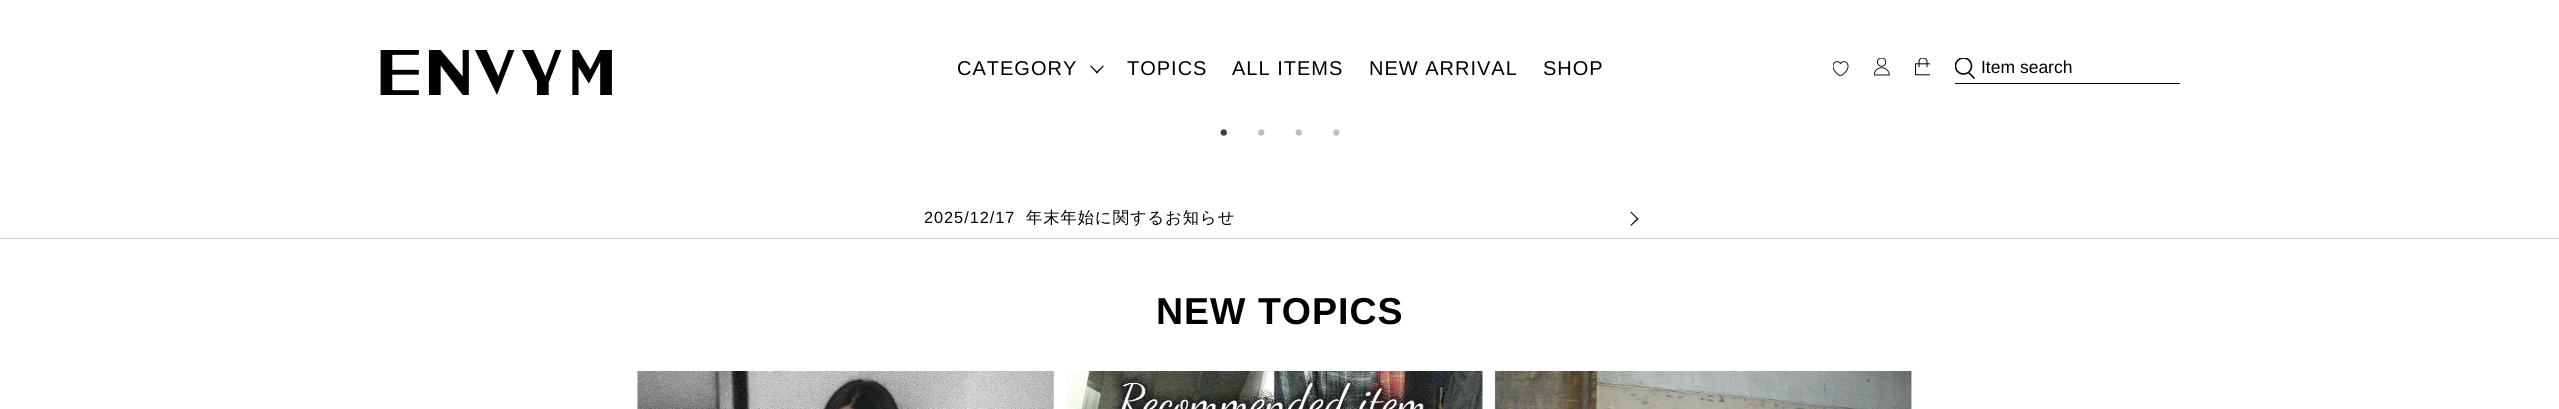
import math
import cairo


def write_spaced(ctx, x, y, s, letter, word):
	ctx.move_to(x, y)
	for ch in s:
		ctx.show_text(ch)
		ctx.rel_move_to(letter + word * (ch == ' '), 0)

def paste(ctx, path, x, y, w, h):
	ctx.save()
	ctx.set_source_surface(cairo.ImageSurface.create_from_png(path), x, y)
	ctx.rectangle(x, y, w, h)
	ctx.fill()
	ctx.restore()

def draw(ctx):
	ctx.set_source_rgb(1, 1, 1)
	ctx.paint()
	paste(ctx, 'media/1.png', 380, 50, 232, 45)
	ctx.select_font_face('Liberation Sans')
	ctx.set_font_size(20)
	ctx.set_source_rgb(0, 0, 0)
	write_spaced(ctx, 957, 75, 'CATEGORY', 1, 0)
	ctx.new_path()
	ctx.move_to(1104, 66)
	ctx.line_to(1097, 73.5)
	ctx.line_to(1096, 72.5)
	ctx.line_to(1103, 65.5)
	ctx.close_path()
	ctx.fill()
	ctx.new_path()
	ctx.move_to(1098, 72.5)
	ctx.line_to(1097, 73.5)
	ctx.line_to(1090, 66)
	ctx.line_to(1091, 65.5)
	ctx.close_path()
	ctx.fill()
	for x, y, s in [
		(1127, 75, 'TOPICS'),
		(1232, 75, 'ALL ITEMS'),
		(1369, 75, 'NEW ARRIVAL'),
		(1543, 75, 'SHOP'),
	]:
		write_spaced(ctx, x, y, s, 1, 0)
	ctx.save()
	ctx.rectangle(1833, 61, 16, 15)
	ctx.clip()
	ctx.new_path()
	ctx.move_to(1840.5, 76)
	ctx.line_to(1843.5, 74)
	ctx.curve_to(1853.5, 65.5, 1844.5, 58, 1840.5, 63.5)
	ctx.curve_to(1836.5, 58, 1827.5, 65.5, 1837.5, 74)
	ctx.close_path()
	ctx.set_line_width(0.9)
	ctx.stroke()
	ctx.restore()
	paste(ctx, 'media/2.png', 1874, 58, 16, 18)
	paste(ctx, 'media/3.png', 1915, 58, 15, 18)
	ctx.rectangle(1955, 83, 225, 1)
	ctx.fill()
	ctx.save()
	ctx.rectangle(1955, 58, 20, 21)
	ctx.clip()
	ctx.arc(1963.5, 66, 8, 0, 2 * math.pi)
	ctx.set_line_width(1.6)
	ctx.stroke()
	ctx.restore()
	ctx.new_path()
	ctx.move_to(1974.5, 78.5)
	ctx.line_to(1968.5, 72.5)
	ctx.set_line_width(1.6)
	ctx.stroke()
	ctx.set_font_size(17.5)
	ctx.move_to(1981, 73)
	ctx.show_text('Item search')
	paste(ctx, 'media/4.png', 1220, 129, 7, 7)
	paste(ctx, 'media/5.png', 1258, 129, 7, 7)
	paste(ctx, 'media/6.png', 1295, 129, 7, 7)
	paste(ctx, 'media/5.png', 1333, 129, 7, 7)
	ctx.set_source_rgb(0.8, 0.8, 0.8)
	ctx.rectangle(0, 238, 2559, 1)
	ctx.fill()
	ctx.set_font_size(16.25)
	ctx.set_source_rgb(0, 0, 0)
	write_spaced(ctx, 924, 223, '2025/12/17', 1, 0)
	ctx.select_font_face('WenQuanYi Zen Hei Medium')
	write_spaced(ctx, 1026, 223, '年末年始に関するお知らせ', 1, 0)
	ctx.new_path()
	ctx.move_to(1631, 211.5)
	ctx.line_to(1638.5, 219)
	ctx.line_to(1637.5, 219.5)
	ctx.line_to(1630.5, 212.5)
	ctx.close_path()
	ctx.fill()
	ctx.new_path()
	ctx.move_to(1637.5, 218)
	ctx.line_to(1638.5, 219)
	ctx.line_to(1631, 226)
	ctx.line_to(1630.5, 225)
	ctx.close_path()
	ctx.fill()
	ctx.select_font_face('Liberation Sans', cairo.FONT_SLANT_NORMAL, cairo.FONT_WEIGHT_BOLD)
	ctx.set_font_size(37.5)
	write_spaced(ctx, 1156, 324, 'NEW TOPICS', 1, 0)
	paste(ctx, 'media/7.png', 637, 371, 417, 38)
	paste(ctx, 'media/8.png', 1066, 371, 417, 38)
	paste(ctx, 'media/9.png', 1495, 371, 417, 38)


surface = cairo.ImageSurface(cairo.FORMAT_RGB24, 2559, 409)
ctx = cairo.Context(surface)
options = cairo.FontOptions()
options.set_hint_metrics(cairo.HINT_METRICS_OFF)
options.set_hint_style(cairo.HINT_STYLE_NONE)
ctx.set_font_options(options)
ctx.set_miter_limit(4)
draw(ctx)
surface.write_to_png('image.png')
